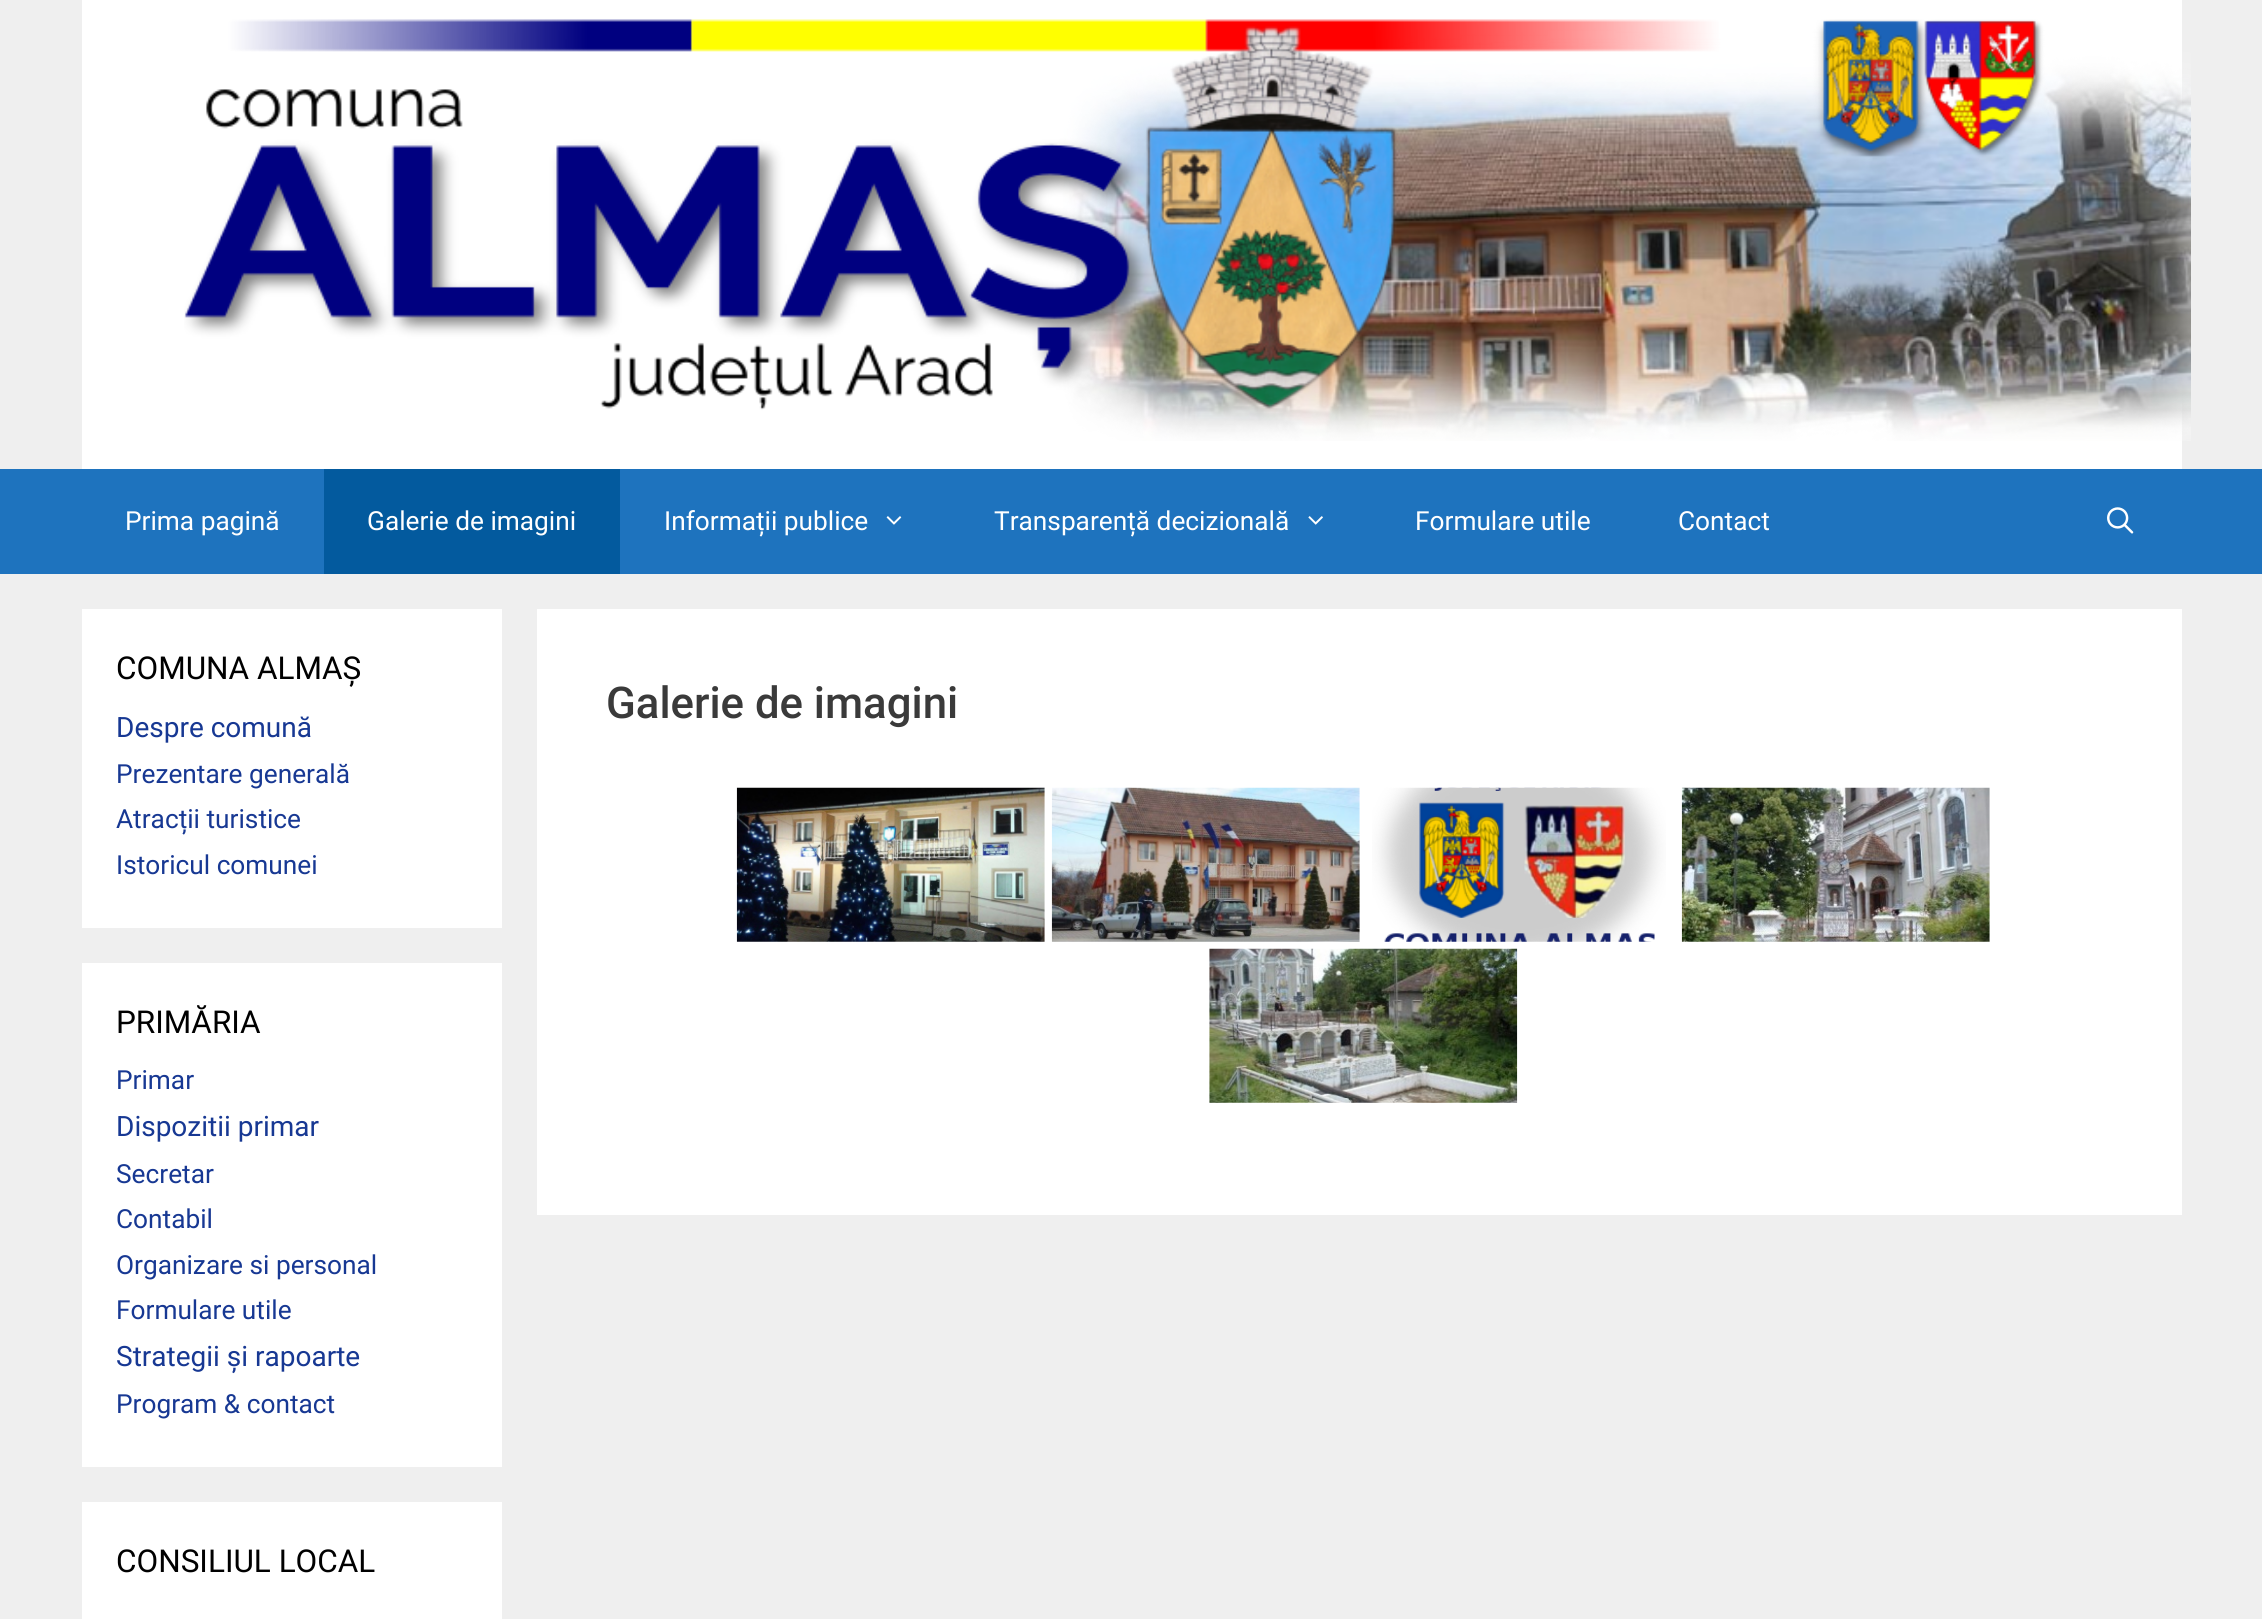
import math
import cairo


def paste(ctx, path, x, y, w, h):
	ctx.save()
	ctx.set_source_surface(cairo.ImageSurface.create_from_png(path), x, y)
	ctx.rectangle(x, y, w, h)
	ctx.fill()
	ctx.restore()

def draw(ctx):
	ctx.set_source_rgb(0.937, 0.937, 0.937)
	ctx.paint()
	ctx.set_source_rgb(1, 1, 1)
	ctx.rectangle(82, 0, 2100, 469)
	ctx.fill()
	paste(ctx, 'media/1.png', 184, 19, 2007, 422)
	ctx.set_source_rgb(0.118, 0.451, 0.745)
	ctx.rectangle(0, 469, 2262, 105)
	ctx.fill()
	ctx.select_font_face('Roboto')
	ctx.set_font_size(26.25)
	ctx.set_source_rgb(1, 1, 1)
	ctx.move_to(125, 530)
	ctx.show_text('Prima pagină')
	ctx.set_source_rgb(0.012, 0.353, 0.62)
	ctx.rectangle(324, 469, 296, 105)
	ctx.fill()
	ctx.set_source_rgb(1, 1, 1)
	ctx.move_to(367, 530)
	ctx.show_text('Galerie de imagini')
	ctx.move_to(664, 530)
	ctx.show_text('Informații publice')
	paste(ctx, 'media/2.png', 886, 516, 16, 9)
	ctx.move_to(994, 530)
	ctx.show_text('Transparență decizională')
	paste(ctx, 'media/3.png', 1308, 516, 15, 9)
	ctx.move_to(1415, 530)
	ctx.show_text('Formulare utile')
	ctx.move_to(1678, 530)
	ctx.show_text('Contact')
	paste(ctx, 'media/4.png', 2107, 507, 27, 27)
	ctx.rectangle(82, 609, 420, 319)
	ctx.fill()
	ctx.set_font_size(31.5)
	ctx.set_source_rgb(0, 0, 0)
	ctx.move_to(116, 679)
	ctx.show_text('COMUNA ALMAȘ')
	ctx.set_font_size(28)
	ctx.set_source_rgb(0.09, 0.22, 0.576)
	ctx.move_to(116, 737)
	ctx.show_text('Despre comună')
	ctx.set_font_size(26.25)
	for x, y, s in [
		(116, 783, 'Prezentare generală'),
		(116, 828, 'Atracții turistice'),
		(116, 874, 'Istoricul comunei'),
	]:
		ctx.move_to(x, y)
		ctx.show_text(s)
	ctx.set_source_rgb(1, 1, 1)
	ctx.rectangle(82, 963, 420, 504)
	ctx.fill()
	ctx.set_font_size(31.5)
	ctx.set_source_rgb(0, 0, 0)
	ctx.move_to(116, 1033)
	ctx.show_text('PRIMĂRIA')
	ctx.set_font_size(26.25)
	ctx.set_source_rgb(0.09, 0.22, 0.576)
	ctx.move_to(116, 1089)
	ctx.show_text('Primar')
	ctx.set_font_size(28)
	ctx.move_to(116, 1136)
	ctx.show_text('Dispozitii primar')
	ctx.set_font_size(26.25)
	for x, y, s in [
		(116, 1183, 'Secretar'),
		(116, 1228, 'Contabil'),
		(116, 1274, 'Organizare si personal'),
		(116, 1319, 'Formulare utile'),
	]:
		ctx.move_to(x, y)
		ctx.show_text(s)
	ctx.set_font_size(28)
	ctx.move_to(116, 1366)
	ctx.show_text('Strategii și rapoarte')
	ctx.set_font_size(26.25)
	ctx.move_to(116, 1413)
	ctx.show_text('Program & contact')
	ctx.set_source_rgb(1, 1, 1)
	ctx.rectangle(82, 1502, 420, 117)
	ctx.fill()
	ctx.set_font_size(31.5)
	ctx.set_source_rgb(0, 0, 0)
	ctx.move_to(116, 1572)
	ctx.show_text('CONSILIUL LOCAL')
	ctx.set_source_rgb(1, 1, 1)
	ctx.rectangle(537, 609, 1645, 606)
	ctx.fill()
	ctx.select_font_face('Roboto Medium')
	ctx.set_font_size(43.75)
	ctx.set_source_rgb(0.227, 0.227, 0.227)
	ctx.move_to(606, 718)
	ctx.show_text('Galerie de imagini')
	paste(ctx, 'media/5.png', 736, 787, 309, 155)
	paste(ctx, 'media/6.png', 1051, 787, 309, 155)
	paste(ctx, 'media/7.png', 1372, 787, 294, 155)
	paste(ctx, 'media/8.png', 1681, 787, 309, 155)
	paste(ctx, 'media/9.png', 1209, 948, 309, 155)


surface = cairo.ImageSurface(cairo.FORMAT_RGB24, 2262, 1619)
ctx = cairo.Context(surface)
options = cairo.FontOptions()
options.set_hint_metrics(cairo.HINT_METRICS_OFF)
options.set_hint_style(cairo.HINT_STYLE_NONE)
ctx.set_font_options(options)
ctx.set_miter_limit(4)
draw(ctx)
surface.write_to_png('image.png')
